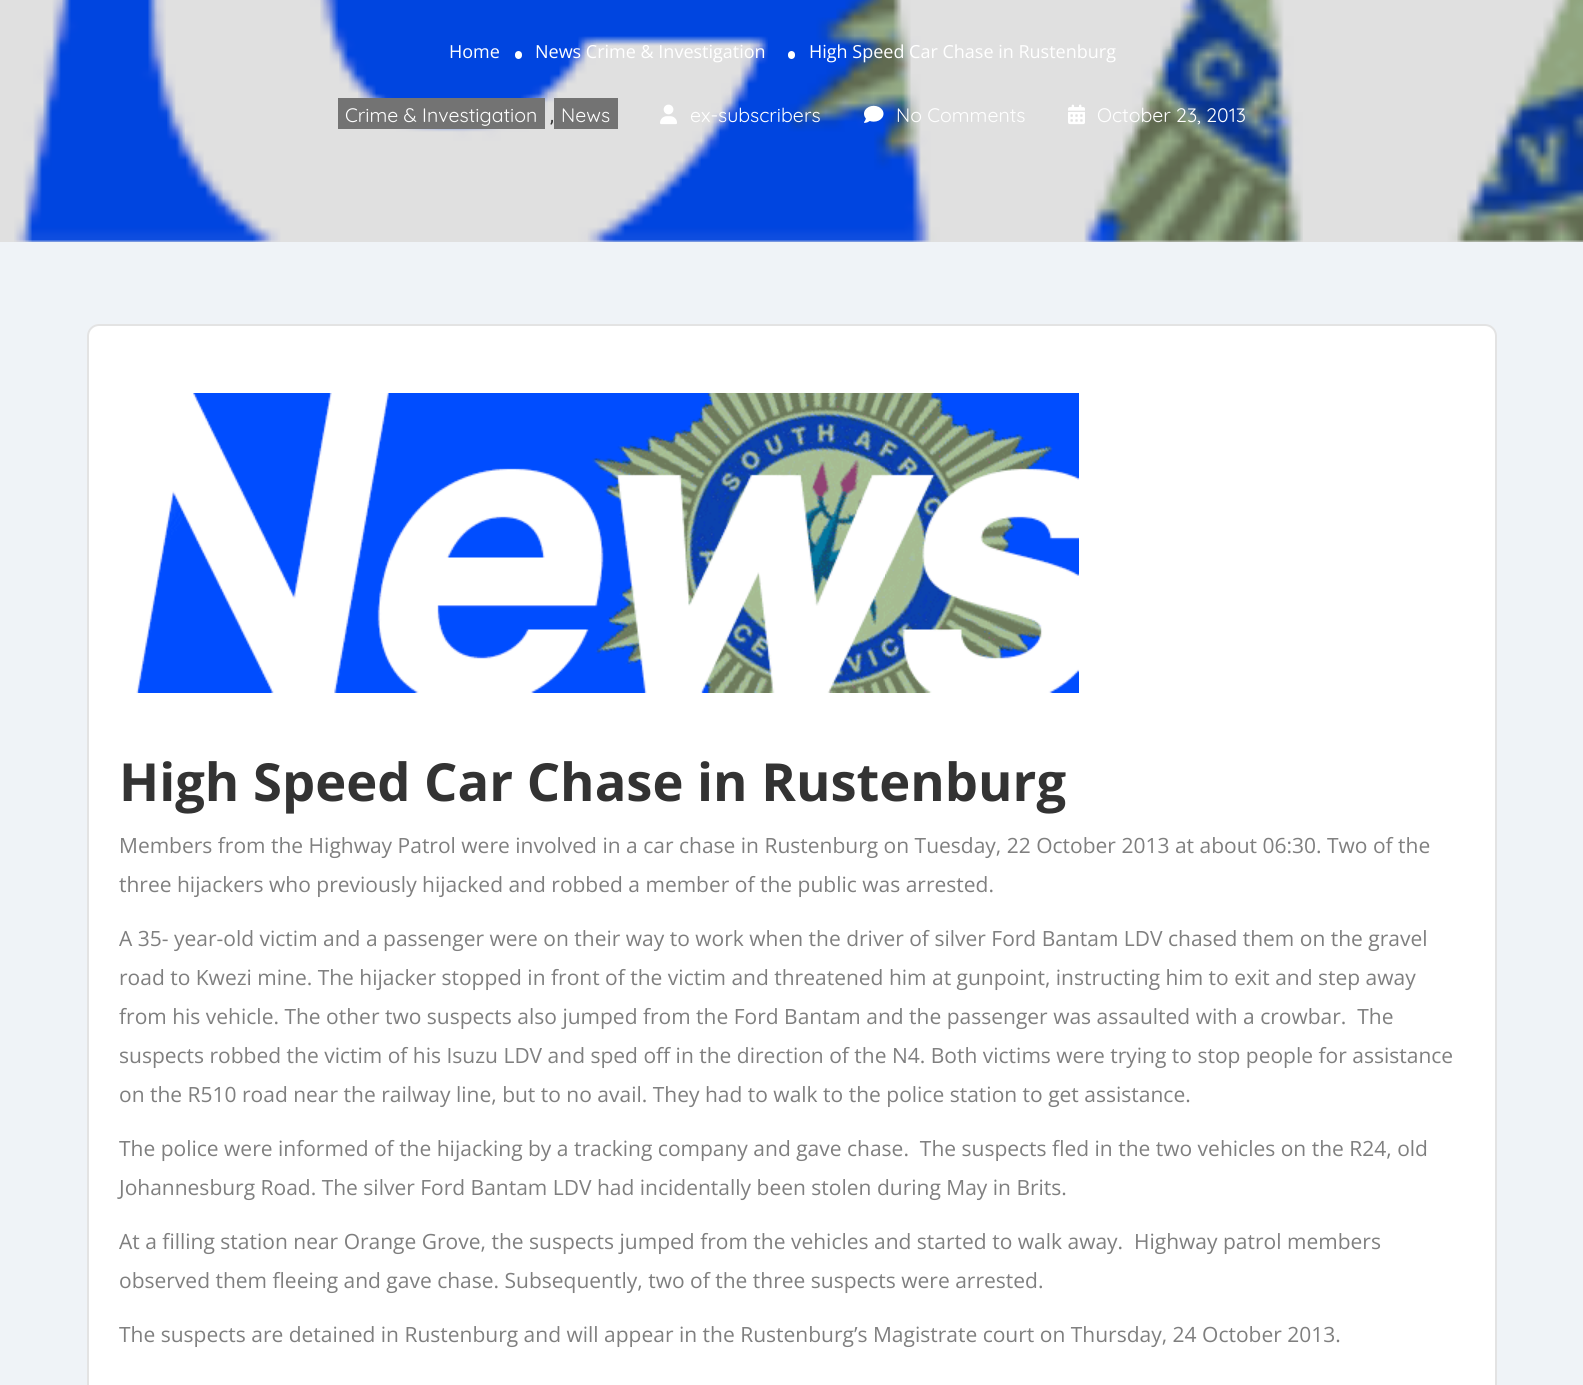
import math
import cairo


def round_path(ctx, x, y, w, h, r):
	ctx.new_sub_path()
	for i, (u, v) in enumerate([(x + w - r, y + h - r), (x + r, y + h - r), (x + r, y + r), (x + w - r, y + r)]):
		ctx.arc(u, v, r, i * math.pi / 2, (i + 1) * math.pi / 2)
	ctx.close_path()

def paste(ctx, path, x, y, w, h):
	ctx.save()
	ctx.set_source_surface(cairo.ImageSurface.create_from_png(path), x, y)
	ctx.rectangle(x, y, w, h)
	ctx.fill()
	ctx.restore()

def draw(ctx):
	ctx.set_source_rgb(1, 1, 1)
	ctx.paint()
	paste(ctx, 'media/1.png', 14, 0, 1569, 242)
	gradient = cairo.RadialGradient(1030, -1001, 0, 1030, -1001, 1613)
	gradient.add_color_stop_rgba(0.05, 1, 0.843, 0, 0.25)
	gradient.add_color_stop_rgba(0.35, 0, 0, 0, 0.12)
	ctx.set_source(gradient)
	ctx.rectangle(0, 0, 1583, 242)
	ctx.fill()
	ctx.select_font_face('Open Sans')
	ctx.set_font_size(18)
	ctx.set_source_rgb(1, 1, 1)
	ctx.move_to(449, 58)
	ctx.show_text('Home')
	round_path(ctx, 515, 51, 7, 8, 3.5)
	ctx.fill()
	ctx.move_to(535, 58)
	ctx.show_text('News Crime & Investigation')
	round_path(ctx, 788, 51, 7, 8, 3.5)
	ctx.fill()
	ctx.move_to(809, 58)
	ctx.show_text('High Speed Car Chase in Rustenburg')
	ctx.set_source_rgb(0.451, 0.451, 0.451)
	ctx.rectangle(338, 98, 207, 31)
	ctx.fill()
	ctx.select_font_face('Quicksand Light')
	ctx.set_font_size(19.5)
	ctx.set_source_rgb(1, 1, 1)
	ctx.move_to(345, 122)
	ctx.show_text('Crime & Investigation')
	ctx.select_font_face('Roboto')
	ctx.set_source_rgb(0.2, 0.2, 0.2)
	ctx.move_to(550, 122)
	ctx.show_text(',')
	ctx.set_source_rgb(0.451, 0.451, 0.451)
	ctx.rectangle(554, 98, 64, 31)
	ctx.fill()
	ctx.select_font_face('Quicksand Light')
	ctx.set_source_rgb(1, 1, 1)
	ctx.move_to(561, 122)
	ctx.show_text('News')
	paste(ctx, 'media/2.png', 660, 104, 17, 21)
	ctx.move_to(690, 122)
	ctx.show_text('ex-subscribers')
	paste(ctx, 'media/3.png', 864, 105, 20, 18)
	ctx.move_to(896, 122)
	ctx.show_text('No Comments')
	paste(ctx, 'media/4.png', 1068, 104, 17, 21)
	ctx.move_to(1097, 122)
	ctx.show_text('October 23, 2013')
	ctx.set_source_rgb(0.937, 0.953, 0.965)
	ctx.rectangle(0, 242, 1583, 1143)
	ctx.fill()
	ctx.set_source_rgb(1, 1, 1)
	round_path(ctx, 88, 325, 1408, 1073, 11)
	ctx.fill_preserve()
	ctx.set_source_rgb(0.89, 0.89, 0.89)
	ctx.stroke()
	paste(ctx, 'media/5.png', 136, 393, 943, 300)
	ctx.select_font_face('Open Sans', cairo.FONT_SLANT_NORMAL, cairo.FONT_WEIGHT_BOLD)
	ctx.set_font_size(52.5)
	ctx.set_source_rgb(0.2, 0.2, 0.2)
	ctx.move_to(119, 801)
	ctx.show_text('High Speed Car Chase in Rustenburg')
	ctx.select_font_face('Open Sans')
	ctx.set_font_size(21)
	ctx.set_source_rgb(0.498, 0.498, 0.498)
	for x, y, s in [
		(119, 853, 'Members from the Highway Patrol were involved in a car chase in Rustenburg on Tuesday, 22 October 2013 at about 06:30. Two of the'),
		(119, 892, 'three hijackers who previously hijacked and robbed a member of the public was arrested.'),
		(119, 946, 'A 35- year-old victim and a passenger were on their way to work when the driver of silver Ford Bantam LDV chased them on the gravel'),
		(119, 985, 'road to Kwezi mine. The hijacker stopped in front of the victim and threatened him at gunpoint, instructing him to exit and step away'),
		(119, 1024, 'from his vehicle. The other two suspects also jumped from the Ford Bantam and the passenger was assaulted with a crowbar.  The'),
		(119, 1063, 'suspects robbed the victim of his Isuzu LDV and sped off in the direction of the N4. Both victims were trying to stop people for assistance'),
		(119, 1102, 'on the R510 road near the railway line, but to no avail. They had to walk to the police station to get assistance.'),
		(119, 1156, 'The police were informed of the hijacking by a tracking company and gave chase.  The suspects fled in the two vehicles on the R24, old'),
		(119, 1195, 'Johannesburg Road. The silver Ford Bantam LDV had incidentally been stolen during May in Brits.'),
		(119, 1249, 'At a filling station near Orange Grove, the suspects jumped from the vehicles and started to walk away.  Highway patrol members'),
		(119, 1288, 'observed them fleeing and gave chase. Subsequently, two of the three suspects were arrested.'),
		(119, 1342, 'The suspects are detained in Rustenburg and will appear in the Rustenburg’s Magistrate court on Thursday, 24 October 2013.'),
	]:
		ctx.move_to(x, y)
		ctx.show_text(s)


surface = cairo.ImageSurface(cairo.FORMAT_RGB24, 1583, 1385)
ctx = cairo.Context(surface)
options = cairo.FontOptions()
options.set_hint_metrics(cairo.HINT_METRICS_OFF)
options.set_hint_style(cairo.HINT_STYLE_NONE)
ctx.set_font_options(options)
ctx.set_miter_limit(4)
draw(ctx)
surface.write_to_png('image.png')
